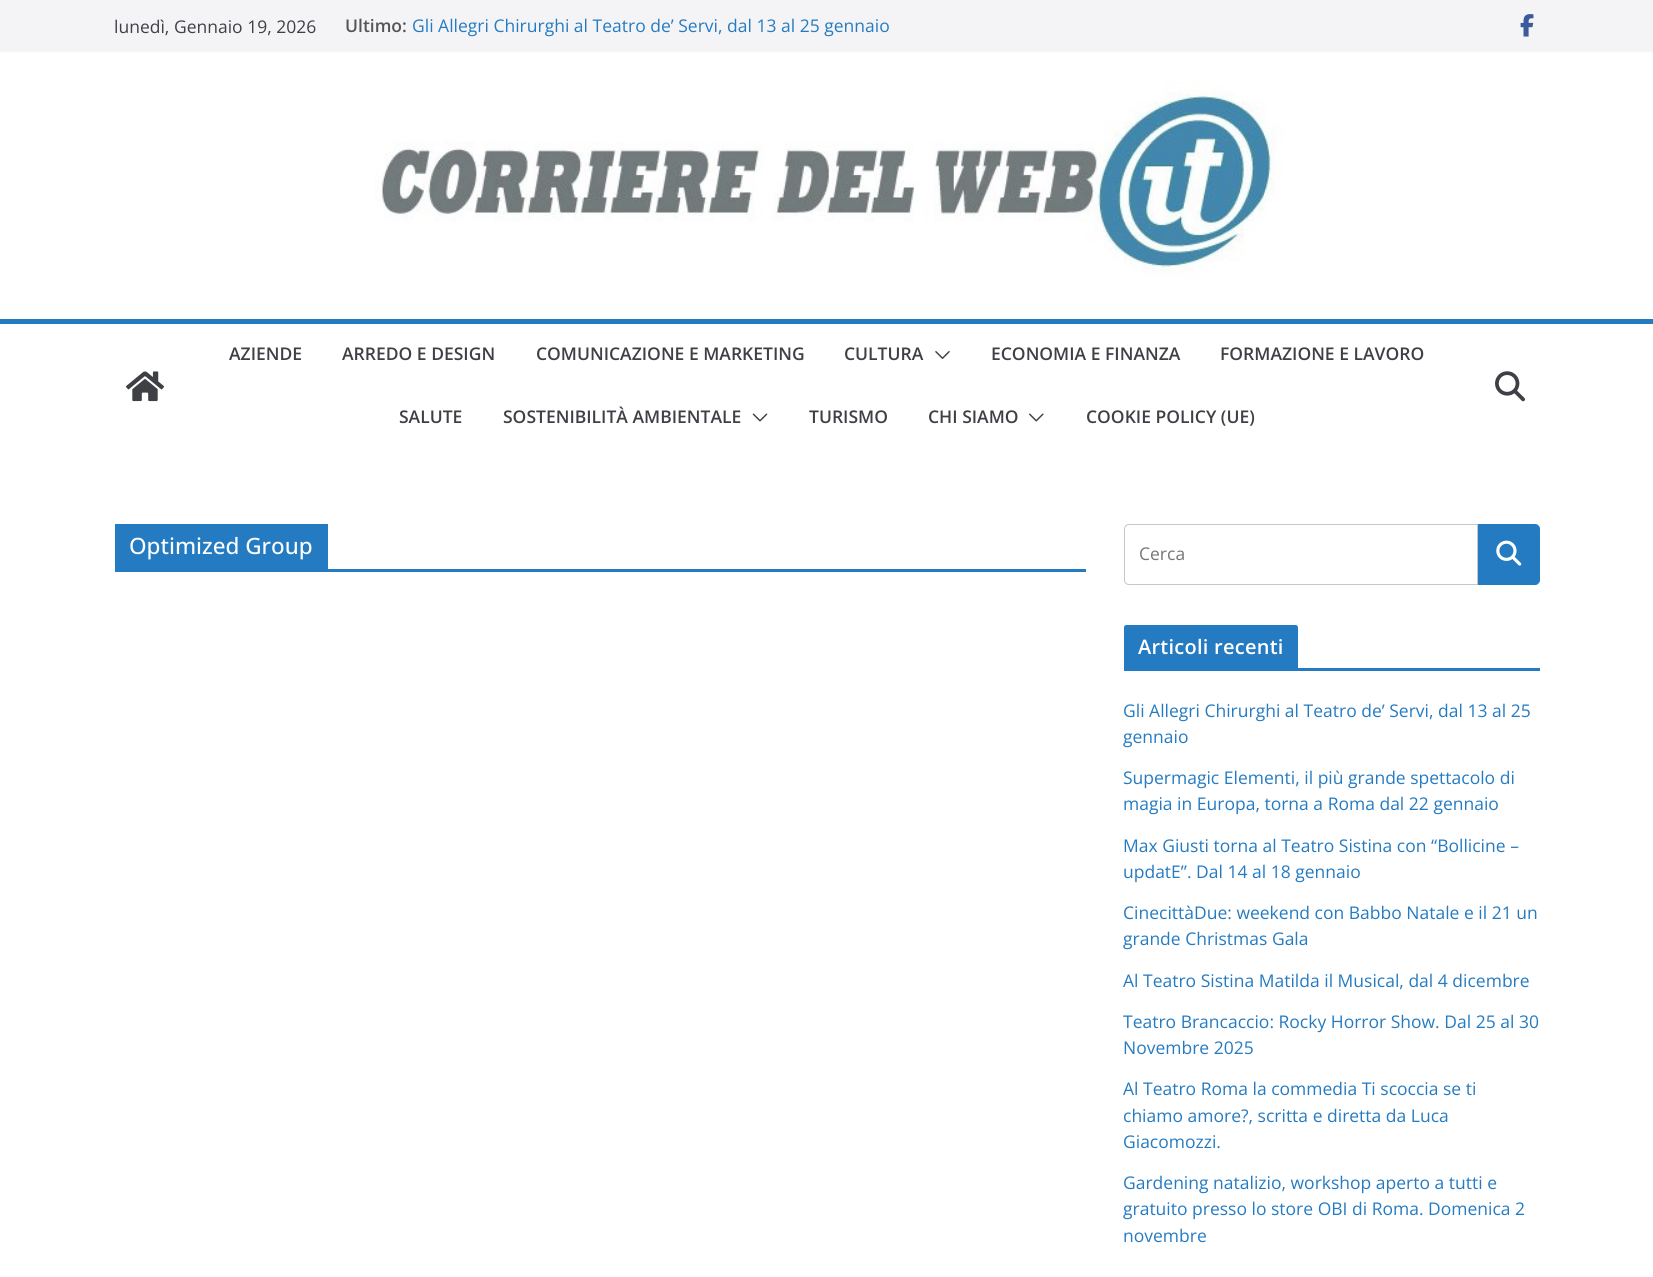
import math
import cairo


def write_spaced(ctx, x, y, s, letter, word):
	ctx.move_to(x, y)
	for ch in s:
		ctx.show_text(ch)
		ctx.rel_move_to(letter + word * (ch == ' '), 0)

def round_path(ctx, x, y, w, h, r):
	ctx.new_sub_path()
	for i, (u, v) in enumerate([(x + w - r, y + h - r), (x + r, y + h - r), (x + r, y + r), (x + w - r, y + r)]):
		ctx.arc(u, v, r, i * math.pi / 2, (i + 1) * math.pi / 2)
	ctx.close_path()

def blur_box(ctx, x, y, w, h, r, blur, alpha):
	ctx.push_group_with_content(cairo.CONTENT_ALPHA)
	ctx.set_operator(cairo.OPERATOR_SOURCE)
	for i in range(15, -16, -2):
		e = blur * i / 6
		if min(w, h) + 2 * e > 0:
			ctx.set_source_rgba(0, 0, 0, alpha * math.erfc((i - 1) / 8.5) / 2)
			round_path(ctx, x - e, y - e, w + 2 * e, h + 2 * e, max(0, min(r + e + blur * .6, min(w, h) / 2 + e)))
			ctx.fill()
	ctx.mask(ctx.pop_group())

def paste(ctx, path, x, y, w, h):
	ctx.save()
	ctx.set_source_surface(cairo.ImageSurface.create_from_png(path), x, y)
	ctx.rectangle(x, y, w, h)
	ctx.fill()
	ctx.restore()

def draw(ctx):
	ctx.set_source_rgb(1, 1, 1)
	ctx.paint()
	ctx.set_source_rgb(0, 0, 0)
	blur_box(ctx, 0, 0, 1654, 51, 0, 1, 0.1)
	ctx.set_source_rgb(0.957, 0.957, 0.961)
	ctx.rectangle(0, 0, 1653, 51)
	ctx.fill()
	ctx.select_font_face('Open Sans')
	ctx.set_font_size(17.5)
	ctx.set_source_rgb(0.247, 0.247, 0.275)
	ctx.move_to(114, 33)
	ctx.show_text('lunedì, Gennaio 19, 2026')
	ctx.select_font_face('Open Sans SemiBold')
	ctx.set_source_rgb(0.333, 0.333, 0.333)
	ctx.move_to(345, 32)
	ctx.show_text('Ultimo:')
	ctx.select_font_face('Open Sans')
	ctx.set_source_rgb(0.145, 0.482, 0.757)
	ctx.move_to(412, 32)
	ctx.show_text('Gli Allegri Chirurghi al Teatro de’ Servi, dal 13 al 25 gennaio')
	paste(ctx, 'media/1.png', 1520, 14, 14, 23)
	paste(ctx, 'media/2.png', 374, 82, 910, 197)
	ctx.rectangle(0, 319, 1653, 5)
	ctx.fill()
	paste(ctx, 'media/3.png', 126, 371, 38, 31)
	ctx.select_font_face('Open Sans SemiBold')
	ctx.set_source_rgb(0.247, 0.247, 0.275)
	for x, y, s in [
		(229, 360, 'AZIENDE'),
		(342, 360, 'ARREDO E DESIGN'),
		(536, 360, 'COMUNICAZIONE E MARKETING'),
		(844, 360, 'CULTURA'),
	]:
		ctx.move_to(x, y)
		ctx.show_text(s)
	paste(ctx, 'media/4.png', 935, 351, 15, 8)
	for x, y, s in [
		(991, 360, 'ECONOMIA E FINANZA'),
		(1220, 360, 'FORMAZIONE E LAVORO'),
		(399, 423, 'SALUTE'),
		(503, 423, 'SOSTENIBILITÀ AMBIENTALE'),
	]:
		ctx.move_to(x, y)
		ctx.show_text(s)
	paste(ctx, 'media/5.png', 752, 413, 16, 9)
	ctx.move_to(809, 423)
	ctx.show_text('TURISMO')
	ctx.move_to(928, 423)
	ctx.show_text('CHI SIAMO')
	paste(ctx, 'media/6.png', 1029, 413, 15, 9)
	ctx.move_to(1086, 423)
	ctx.show_text('COOKIE POLICY (UE)')
	paste(ctx, 'media/7.png', 1495, 371, 30, 31)
	ctx.set_source_rgb(0.145, 0.482, 0.757)
	ctx.rectangle(115, 569, 971, 3)
	ctx.fill()
	ctx.rectangle(115, 524, 213, 45)
	ctx.fill()
	ctx.select_font_face('Open Sans Medium')
	ctx.set_font_size(22.5)
	ctx.set_source_rgb(1, 1, 1)
	ctx.move_to(129, 554)
	ctx.show_text('Optimized Group')
	ctx.new_path()
	ctx.move_to(1129, 524.5)
	ctx.line_to(1477.5, 524.5)
	ctx.line_to(1477.5, 584.5)
	ctx.line_to(1129, 584.5)
	ctx.curve_to(1126.5, 584.5, 1124.5, 582.5, 1124.5, 580)
	ctx.line_to(1124.5, 529)
	ctx.curve_to(1124.5, 526.5, 1126.5, 524.5, 1129, 524.5)
	ctx.close_path()
	ctx.set_source_rgb(0.78, 0.78, 0.78)
	ctx.set_line_width(1)
	ctx.stroke()
	ctx.select_font_face('Open Sans')
	ctx.set_font_size(17.5)
	ctx.set_source_rgb(0.459, 0.459, 0.459)
	ctx.move_to(1139, 560)
	ctx.show_text('Cerca')
	ctx.set_source_rgb(0.145, 0.482, 0.757)
	ctx.new_path()
	ctx.move_to(1478.5, 524.5)
	ctx.line_to(1535, 524.5)
	ctx.curve_to(1537.5, 524.5, 1539.5, 526.5, 1539.5, 529)
	ctx.line_to(1539.5, 580)
	ctx.curve_to(1539.5, 582.5, 1537.5, 584.5, 1535, 584.5)
	ctx.line_to(1478.5, 584.5)
	ctx.close_path()
	ctx.fill_preserve()
	ctx.stroke()
	paste(ctx, 'media/8.png', 1496, 540, 26, 26)
	ctx.rectangle(1124, 668, 416, 3)
	ctx.fill()
	ctx.new_path()
	ctx.move_to(1126.5, 625)
	ctx.line_to(1295.5, 625)
	ctx.curve_to(1297, 625, 1298, 626, 1298, 627.5)
	ctx.line_to(1298, 668)
	ctx.line_to(1124, 668)
	ctx.line_to(1124, 627.5)
	ctx.curve_to(1124, 626, 1125, 625, 1126.5, 625)
	ctx.close_path()
	ctx.fill()
	ctx.select_font_face('Open Sans SemiBold')
	ctx.set_font_size(20)
	ctx.set_source_rgb(1, 1, 1)
	write_spaced(ctx, 1138, 654, 'Articoli recenti', 0.25, 0)
	ctx.select_font_face('Open Sans')
	ctx.set_font_size(17.5)
	ctx.set_source_rgb(0.145, 0.482, 0.757)
	for x, y, s in [
		(1123, 717, 'Gli Allegri Chirurghi al Teatro de’ Servi, dal 13 al 25'),
		(1123, 743, 'gennaio'),
		(1123, 784, 'Supermagic Elementi, il più grande spettacolo di'),
		(1123, 810, 'magia in Europa, torna a Roma dal 22 gennaio'),
		(1123, 852, 'Max Giusti torna al Teatro Sistina con “Bollicine –'),
		(1123, 878, 'updatE”. Dal 14 al 18 gennaio'),
		(1123, 919, 'CinecittàDue: weekend con Babbo Natale e il 21 un'),
		(1123, 945, 'grande Christmas Gala'),
		(1123, 987, 'Al Teatro Sistina Matilda il Musical, dal 4 dicembre'),
		(1123, 1028, 'Teatro Brancaccio: Rocky Horror Show. Dal 25 al 30'),
		(1123, 1054, 'Novembre 2025'),
		(1123, 1095, 'Al Teatro Roma la commedia Ti scoccia se ti'),
		(1123, 1122, 'chiamo amore?, scritta e diretta da Luca'),
		(1123, 1148, 'Giacomozzi.'),
		(1123, 1189, 'Gardening natalizio, workshop aperto a tutti e'),
		(1123, 1215, 'gratuito presso lo store OBI di Roma. Domenica 2'),
		(1123, 1242, 'novembre'),
	]:
		ctx.move_to(x, y)
		ctx.show_text(s)


surface = cairo.ImageSurface(cairo.FORMAT_RGB24, 1653, 1277)
ctx = cairo.Context(surface)
options = cairo.FontOptions()
options.set_hint_metrics(cairo.HINT_METRICS_OFF)
options.set_hint_style(cairo.HINT_STYLE_NONE)
ctx.set_font_options(options)
ctx.set_miter_limit(4)
draw(ctx)
surface.write_to_png('image.png')
